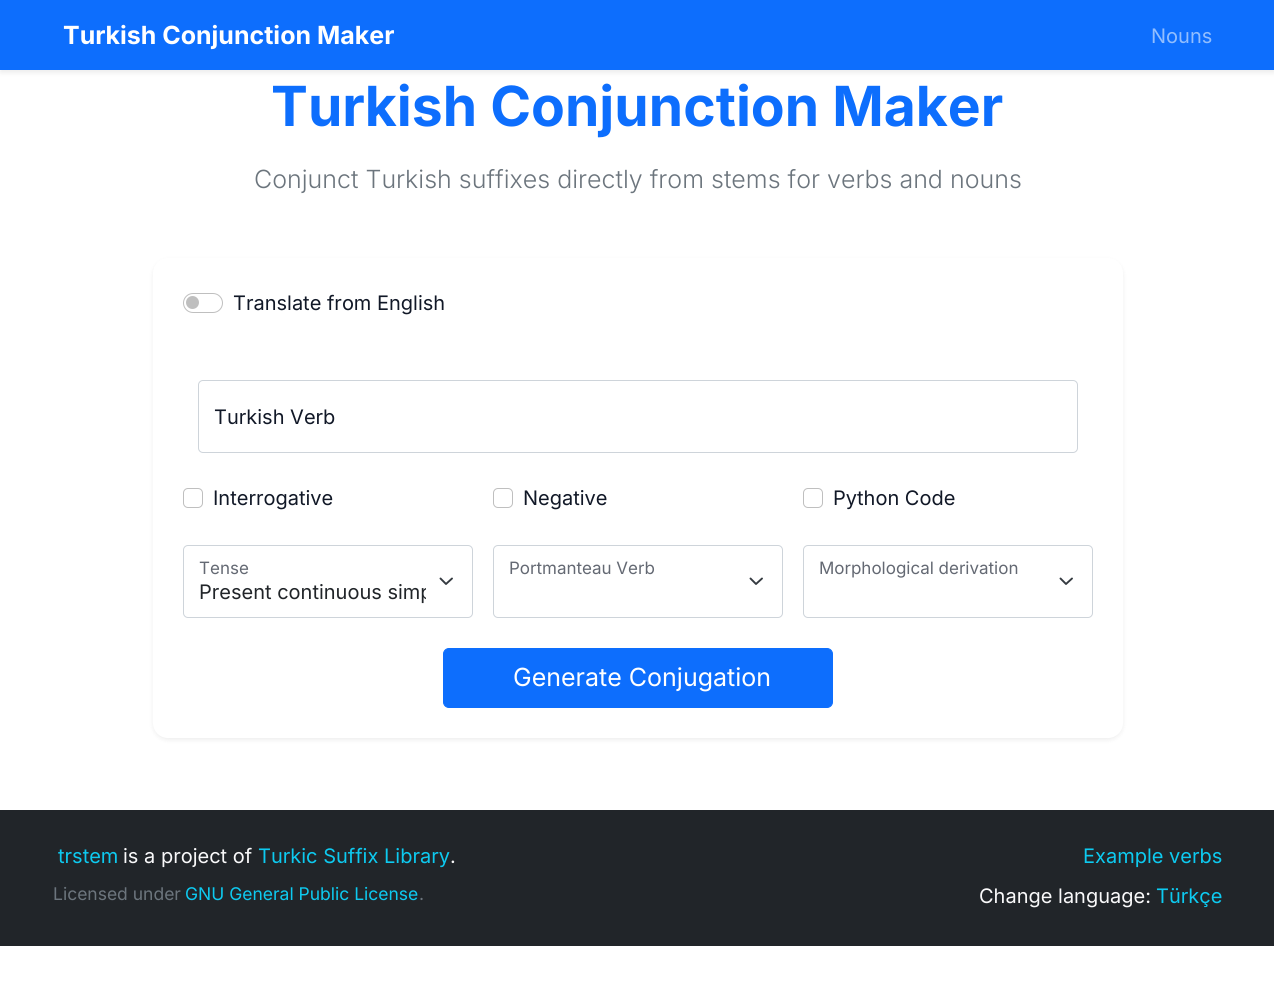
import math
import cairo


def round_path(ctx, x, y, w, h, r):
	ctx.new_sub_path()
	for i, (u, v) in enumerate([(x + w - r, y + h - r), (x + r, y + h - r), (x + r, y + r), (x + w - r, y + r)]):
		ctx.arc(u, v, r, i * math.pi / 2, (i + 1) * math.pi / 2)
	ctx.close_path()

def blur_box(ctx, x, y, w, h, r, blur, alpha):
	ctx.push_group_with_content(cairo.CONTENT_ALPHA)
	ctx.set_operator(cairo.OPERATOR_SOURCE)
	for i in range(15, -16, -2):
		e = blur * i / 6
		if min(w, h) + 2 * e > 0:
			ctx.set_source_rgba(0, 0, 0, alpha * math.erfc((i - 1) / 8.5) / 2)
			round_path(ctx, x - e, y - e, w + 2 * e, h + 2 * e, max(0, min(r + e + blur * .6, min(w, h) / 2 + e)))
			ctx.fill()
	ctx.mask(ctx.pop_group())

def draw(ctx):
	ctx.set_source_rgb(1, 1, 1)
	ctx.paint()
	ctx.set_source_rgb(0, 0, 0)
	blur_box(ctx, 0, 3, 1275, 70, 0, 2.5, 0.07)
	ctx.set_source_rgb(0.051, 0.431, 0.992)
	ctx.rectangle(0, 0, 1274, 70)
	ctx.fill()
	ctx.select_font_face('Inter', cairo.FONT_SLANT_NORMAL, cairo.FONT_WEIGHT_BOLD)
	ctx.set_font_size(25)
	ctx.set_source_rgb(1, 1, 1)
	ctx.move_to(63, 44)
	ctx.show_text('Turkish Conjunction Maker')
	ctx.select_font_face('Inter')
	ctx.set_font_size(20)
	ctx.set_source_rgb(0.573, 0.745, 0.996)
	ctx.move_to(1151, 43)
	ctx.show_text('Nouns')
	ctx.select_font_face('Inter', cairo.FONT_SLANT_NORMAL, cairo.FONT_WEIGHT_BOLD)
	ctx.set_font_size(55.25)
	ctx.set_source_rgb(0.051, 0.431, 0.992)
	ctx.move_to(271, 126)
	ctx.show_text('Turkish Conjunction Maker')
	ctx.select_font_face('Inter Light')
	ctx.set_font_size(25)
	ctx.set_source_rgb(0.424, 0.459, 0.49)
	ctx.move_to(254, 188)
	ctx.show_text('Conjunct Turkish suffixes directly from stems for verbs and nouns')
	ctx.set_source_rgb(0, 0, 0)
	blur_box(ctx, 153, 260, 970, 480, 15, 2.5, 0.07)
	ctx.set_source_rgb(1, 1, 1)
	round_path(ctx, 153, 258, 970, 480, 15)
	ctx.fill()
	ctx.set_source_rgb(0.749, 0.749, 0.749)
	ctx.arc(192.5, 302.5, 6.5, 0, 2 * math.pi)
	ctx.fill()
	round_path(ctx, 183.5, 293.5, 39, 19, 9.5)
	ctx.set_line_width(1)
	ctx.stroke()
	ctx.select_font_face('Inter')
	ctx.set_font_size(20)
	ctx.set_source_rgb(0.067, 0.094, 0.153)
	ctx.move_to(233, 310)
	ctx.show_text('Translate from English')
	round_path(ctx, 198.5, 380.5, 879, 72, 4.5)
	ctx.set_source_rgb(0.808, 0.831, 0.855)
	ctx.stroke()
	ctx.set_source_rgb(0.067, 0.094, 0.153)
	ctx.move_to(214, 424)
	ctx.show_text('Turkish Verb')
	round_path(ctx, 183.5, 488.5, 19, 19, 4.5)
	ctx.set_source_rgb(0.749, 0.749, 0.749)
	ctx.stroke()
	ctx.set_source_rgb(0.067, 0.094, 0.153)
	ctx.move_to(213, 505)
	ctx.show_text('Interrogative')
	round_path(ctx, 493.5, 488.5, 19, 19, 4.5)
	ctx.set_source_rgb(0.749, 0.749, 0.749)
	ctx.stroke()
	ctx.set_source_rgb(0.067, 0.094, 0.153)
	ctx.move_to(523, 505)
	ctx.show_text('Negative')
	round_path(ctx, 803.5, 488.5, 19, 19, 4.5)
	ctx.set_source_rgb(0.749, 0.749, 0.749)
	ctx.stroke()
	ctx.set_source_rgb(0.067, 0.094, 0.153)
	ctx.move_to(833, 505)
	ctx.show_text('Python Code')
	ctx.new_path()
	ctx.move_to(440.5, 578.5)
	ctx.line_to(446, 584)
	ctx.line_to(452, 578.5)
	ctx.set_source_rgb(0.204, 0.227, 0.251)
	ctx.set_line_width(1.9)
	ctx.set_line_cap(cairo.LINE_CAP_ROUND)
	ctx.set_line_join(cairo.LINE_JOIN_ROUND)
	ctx.stroke()
	round_path(ctx, 183.5, 545.5, 289, 72, 4.5)
	ctx.set_source_rgb(0.808, 0.831, 0.855)
	ctx.set_line_width(1)
	ctx.set_line_cap(cairo.LINE_CAP_BUTT)
	ctx.set_line_join(cairo.LINE_JOIN_MITER)
	ctx.stroke()
	ctx.set_font_size(17)
	ctx.set_source_rgb(0.392, 0.412, 0.451)
	ctx.move_to(199, 574)
	ctx.show_text('Tense')
	ctx.save()
	ctx.rectangle(199, 579, 227, 25)
	ctx.clip()
	ctx.set_font_size(20)
	ctx.set_source_rgb(0.129, 0.145, 0.161)
	ctx.move_to(199, 599)
	ctx.show_text('Present continuous simp')
	ctx.restore()
	ctx.new_path()
	ctx.move_to(750.5, 578.5)
	ctx.line_to(756, 584)
	ctx.line_to(762, 578.5)
	ctx.set_source_rgb(0.204, 0.227, 0.251)
	ctx.set_line_width(1.9)
	ctx.set_line_cap(cairo.LINE_CAP_ROUND)
	ctx.set_line_join(cairo.LINE_JOIN_ROUND)
	ctx.stroke()
	round_path(ctx, 493.5, 545.5, 289, 72, 4.5)
	ctx.set_source_rgb(0.808, 0.831, 0.855)
	ctx.set_line_width(1)
	ctx.set_line_cap(cairo.LINE_CAP_BUTT)
	ctx.set_line_join(cairo.LINE_JOIN_MITER)
	ctx.stroke()
	ctx.set_source_rgb(0.392, 0.412, 0.451)
	ctx.move_to(509, 574)
	ctx.show_text('Portmanteau Verb')
	ctx.new_path()
	ctx.move_to(1060.5, 578.5)
	ctx.line_to(1066, 584)
	ctx.line_to(1072, 578.5)
	ctx.set_source_rgb(0.204, 0.227, 0.251)
	ctx.set_line_width(1.9)
	ctx.set_line_cap(cairo.LINE_CAP_ROUND)
	ctx.set_line_join(cairo.LINE_JOIN_ROUND)
	ctx.stroke()
	round_path(ctx, 803.5, 545.5, 289, 72, 4.5)
	ctx.set_source_rgb(0.808, 0.831, 0.855)
	ctx.set_line_width(1)
	ctx.set_line_cap(cairo.LINE_CAP_BUTT)
	ctx.set_line_join(cairo.LINE_JOIN_MITER)
	ctx.stroke()
	ctx.set_source_rgb(0.392, 0.412, 0.451)
	ctx.move_to(819, 574)
	ctx.show_text('Morphological derivation')
	ctx.set_source_rgb(0.051, 0.431, 0.992)
	round_path(ctx, 443.5, 648.5, 389, 59, 5.5)
	ctx.fill_preserve()
	ctx.stroke()
	ctx.set_font_size(25)
	ctx.set_source_rgb(1, 1, 1)
	ctx.move_to(513, 686)
	ctx.show_text('Generate Conjugation')
	ctx.set_source_rgb(0.129, 0.145, 0.161)
	ctx.rectangle(0, 810, 1274, 136)
	ctx.fill()
	ctx.set_font_size(20)
	ctx.set_source_rgb(0.051, 0.792, 0.941)
	ctx.move_to(58, 863)
	ctx.show_text('trstem')
	ctx.set_source_rgb(0.973, 0.976, 0.98)
	ctx.move_to(123, 863)
	ctx.show_text('is a project of')
	ctx.set_source_rgb(0.051, 0.792, 0.941)
	ctx.move_to(258, 863)
	ctx.show_text('Turkic Suffix Library')
	ctx.set_source_rgb(0.973, 0.976, 0.98)
	ctx.move_to(450, 863)
	ctx.show_text('.')
	ctx.set_font_size(17.5)
	ctx.set_source_rgb(0.424, 0.459, 0.49)
	ctx.move_to(53, 900)
	ctx.show_text('Licensed under')
	ctx.set_source_rgb(0.051, 0.792, 0.941)
	ctx.move_to(185, 900)
	ctx.show_text('GNU General Public License')
	ctx.set_source_rgb(0.424, 0.459, 0.49)
	ctx.move_to(419, 900)
	ctx.show_text('.')
	ctx.set_font_size(20)
	ctx.set_source_rgb(0.051, 0.792, 0.941)
	ctx.move_to(1083, 863)
	ctx.show_text('Example verbs')
	ctx.set_source_rgb(0.973, 0.976, 0.98)
	ctx.move_to(979, 903)
	ctx.show_text('Change language:')
	ctx.set_source_rgb(0.051, 0.792, 0.941)
	ctx.move_to(1156, 903)
	ctx.show_text('Türkçe')


surface = cairo.ImageSurface(cairo.FORMAT_RGB24, 1274, 992)
ctx = cairo.Context(surface)
options = cairo.FontOptions()
options.set_hint_metrics(cairo.HINT_METRICS_OFF)
options.set_hint_style(cairo.HINT_STYLE_NONE)
ctx.set_font_options(options)
ctx.set_miter_limit(4)
draw(ctx)
surface.write_to_png('image.png')
